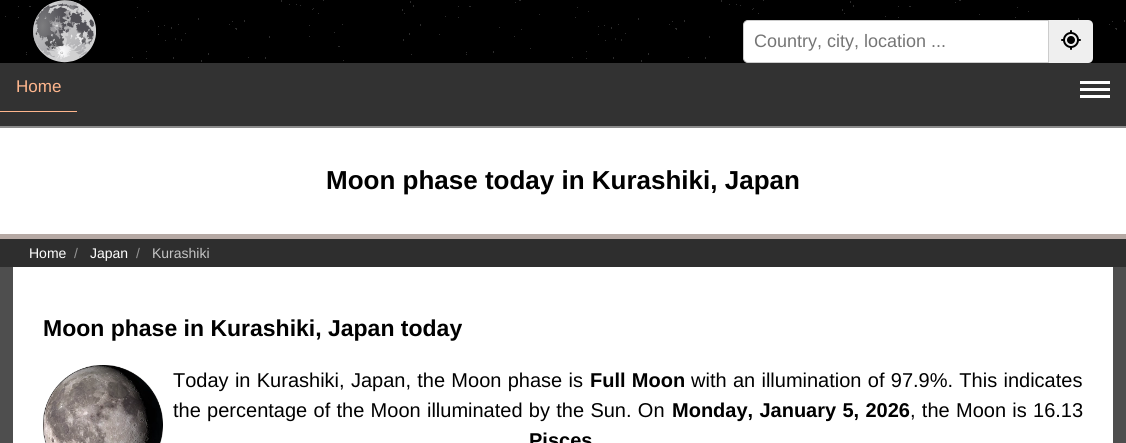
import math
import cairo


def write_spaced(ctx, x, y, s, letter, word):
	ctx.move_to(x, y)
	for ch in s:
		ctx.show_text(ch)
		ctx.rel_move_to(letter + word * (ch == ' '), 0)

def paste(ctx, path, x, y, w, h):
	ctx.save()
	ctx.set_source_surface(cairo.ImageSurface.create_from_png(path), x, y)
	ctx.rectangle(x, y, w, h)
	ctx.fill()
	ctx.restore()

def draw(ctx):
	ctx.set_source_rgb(0.306, 0.306, 0.306)
	ctx.paint()
	ctx.set_source_rgb(0, 0, 0)
	ctx.rectangle(0, 0, 1126, 63)
	ctx.fill()
	paste(ctx, 'media/1.png', 5, 0, 1120, 62)
	paste(ctx, 'media/2.png', 33, 0, 63, 63)
	ctx.set_source_rgb(1, 1, 1)
	ctx.new_path()
	ctx.move_to(748, 20.5)
	ctx.line_to(1048.5, 20.5)
	ctx.line_to(1048.5, 62.5)
	ctx.line_to(748, 62.5)
	ctx.curve_to(745.5, 62.5, 743.5, 60.5, 743.5, 58)
	ctx.line_to(743.5, 25)
	ctx.curve_to(743.5, 22.5, 745.5, 20.5, 748, 20.5)
	ctx.close_path()
	ctx.fill_preserve()
	ctx.set_source_rgb(0.8, 0.8, 0.8)
	ctx.set_line_width(1)
	ctx.stroke()
	ctx.select_font_face('Liberation Sans')
	ctx.set_font_size(18)
	ctx.set_source_rgb(0.459, 0.459, 0.459)
	ctx.move_to(754, 47)
	ctx.show_text('Country, city, location ...')
	ctx.set_source_rgb(0.937, 0.937, 0.937)
	ctx.new_path()
	ctx.move_to(1049, 20)
	ctx.line_to(1088, 20)
	ctx.curve_to(1091, 20, 1093, 22, 1093, 25)
	ctx.line_to(1093, 58)
	ctx.curve_to(1093, 61, 1091, 63, 1088, 63)
	ctx.line_to(1049, 63)
	ctx.close_path()
	ctx.fill()
	paste(ctx, 'media/3.png', 1061, 30, 20, 20)
	ctx.set_source_rgb(0.196, 0.196, 0.196)
	ctx.rectangle(0, 63, 1126, 63)
	ctx.fill()
	ctx.set_source_rgb(0.545, 0.545, 0.545)
	ctx.rectangle(0, 126, 1126, 2)
	ctx.fill()
	ctx.set_source_rgb(1, 0.714, 0.553)
	ctx.rectangle(0, 111, 77, 1)
	ctx.fill()
	ctx.set_font_size(17)
	ctx.move_to(16, 92)
	ctx.show_text('Home')
	ctx.set_source_rgb(1, 1, 1)
	ctx.rectangle(1080, 81, 30, 3)
	ctx.rectangle(1080, 88, 30, 3)
	ctx.rectangle(1080, 95, 30, 3)
	ctx.rectangle(0, 128, 1126, 106)
	ctx.fill()
	ctx.set_source_rgb(0.714, 0.663, 0.643)
	ctx.rectangle(0, 234, 1126, 5)
	ctx.fill()
	ctx.select_font_face('Liberation Sans', cairo.FONT_SLANT_NORMAL, cairo.FONT_WEIGHT_BOLD)
	ctx.set_font_size(26)
	ctx.set_source_rgb(0, 0, 0)
	ctx.move_to(326, 189)
	ctx.show_text('Moon phase today in Kurashiki, Japan')
	ctx.set_source_rgb(0.18, 0.18, 0.18)
	ctx.rectangle(0, 239, 1126, 28)
	ctx.fill()
	ctx.select_font_face('Liberation Sans')
	ctx.set_font_size(14)
	ctx.set_source_rgb(1, 1, 1)
	ctx.move_to(29, 258)
	ctx.show_text('Home')
	ctx.set_source_rgb(0.584, 0.584, 0.584)
	ctx.move_to(74, 258)
	ctx.show_text('/')
	ctx.set_source_rgb(1, 1, 1)
	ctx.move_to(90, 258)
	ctx.show_text('Japan')
	ctx.set_source_rgb(0.584, 0.584, 0.584)
	ctx.move_to(136, 258)
	ctx.show_text('/')
	ctx.set_source_rgb(0.773, 0.773, 0.773)
	ctx.move_to(152, 258)
	ctx.show_text('Kurashiki')
	ctx.set_source_rgb(1, 1, 1)
	ctx.rectangle(13, 267, 1100, 176)
	ctx.fill()
	ctx.select_font_face('Liberation Sans', cairo.FONT_SLANT_NORMAL, cairo.FONT_WEIGHT_BOLD)
	ctx.set_font_size(23)
	ctx.set_source_rgb(0, 0, 0)
	ctx.move_to(43, 336)
	ctx.show_text('Moon phase in Kurashiki, Japan today')
	paste(ctx, 'media/4.png', 43, 365, 120, 78)
	ctx.select_font_face('Liberation Sans')
	ctx.set_font_size(20)
	write_spaced(ctx, 173, 387, 'Today in Kurashiki, Japan, the Moon phase is', 0, 0.75)
	ctx.select_font_face('Liberation Sans', cairo.FONT_SLANT_NORMAL, cairo.FONT_WEIGHT_BOLD)
	write_spaced(ctx, 590, 387, 'Full Moon', 0, 0.75)
	ctx.select_font_face('Liberation Sans')
	write_spaced(ctx, 691, 387, 'with an illumination of 97.9%. This indicates', 0, 0.75)
	write_spaced(ctx, 173, 417, 'the percentage of the Moon illuminated by the Sun. On', 0, 0.75)
	ctx.select_font_face('Liberation Sans', cairo.FONT_SLANT_NORMAL, cairo.FONT_WEIGHT_BOLD)
	write_spaced(ctx, 672, 417, 'Monday, January 5, 2026', 0, 0.75)
	ctx.select_font_face('Liberation Sans')
	write_spaced(ctx, 910, 417, ', the Moon is 16.13', 0, 0.75)
	ctx.select_font_face('Liberation Sans', cairo.FONT_SLANT_NORMAL, cairo.FONT_WEIGHT_BOLD)
	ctx.move_to(529, 447)
	ctx.show_text('Pisces')


surface = cairo.ImageSurface(cairo.FORMAT_RGB24, 1126, 443)
ctx = cairo.Context(surface)
options = cairo.FontOptions()
options.set_hint_metrics(cairo.HINT_METRICS_OFF)
options.set_hint_style(cairo.HINT_STYLE_NONE)
ctx.set_font_options(options)
ctx.set_miter_limit(4)
draw(ctx)
surface.write_to_png('image.png')
